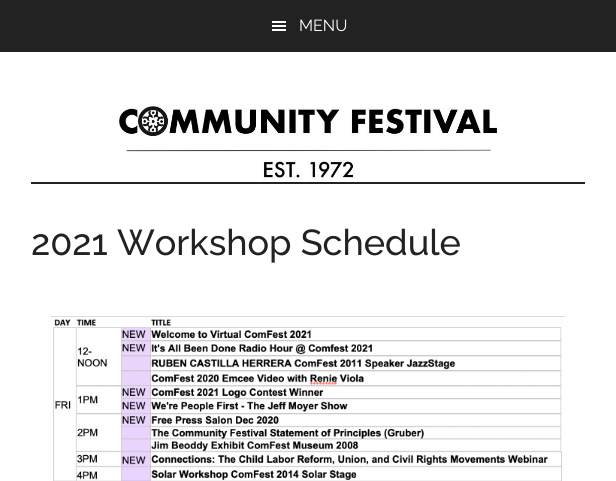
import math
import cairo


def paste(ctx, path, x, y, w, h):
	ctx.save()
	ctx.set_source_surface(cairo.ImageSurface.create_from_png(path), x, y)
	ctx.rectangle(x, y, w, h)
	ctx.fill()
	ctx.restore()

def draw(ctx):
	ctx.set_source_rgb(1, 1, 1)
	ctx.paint()
	ctx.set_source_rgb(0.133, 0.133, 0.133)
	ctx.rectangle(0, 0, 616, 52)
	ctx.fill()
	paste(ctx, 'media/1.png', 272, 21, 14, 10)
	ctx.select_font_face('Raleway')
	ctx.set_font_size(16)
	ctx.set_source_rgb(1, 1, 1)
	ctx.move_to(299, 31)
	ctx.show_text('MENU')
	ctx.set_source_rgb(0.133, 0.133, 0.133)
	ctx.rectangle(31, 182, 554, 2)
	ctx.fill()
	paste(ctx, 'media/2.png', 118, 105, 379, 76)
	ctx.select_font_face('Raleway Medium')
	ctx.set_font_size(36)
	ctx.move_to(31, 255)
	ctx.show_text('2021 Workshop Schedule')
	paste(ctx, 'media/3.png', 51, 316, 514, 165)


surface = cairo.ImageSurface(cairo.FORMAT_RGB24, 616, 481)
ctx = cairo.Context(surface)
options = cairo.FontOptions()
options.set_hint_metrics(cairo.HINT_METRICS_OFF)
options.set_hint_style(cairo.HINT_STYLE_NONE)
ctx.set_font_options(options)
ctx.set_miter_limit(4)
draw(ctx)
surface.write_to_png('image.png')
